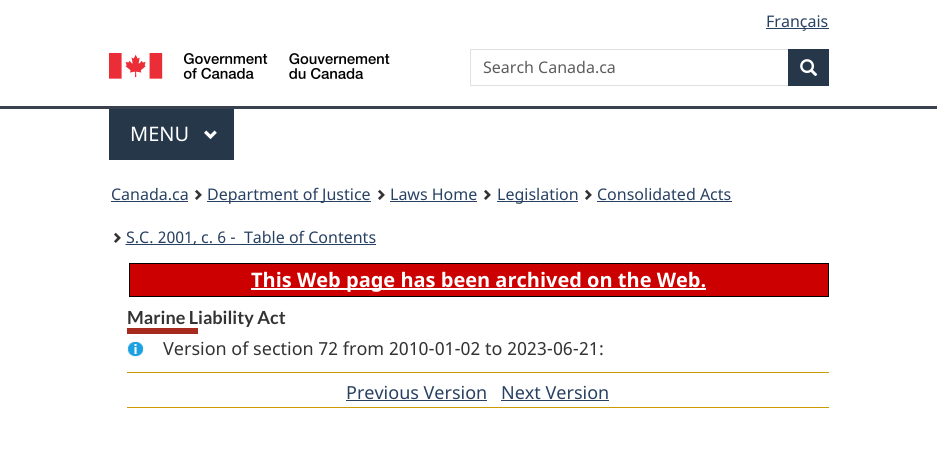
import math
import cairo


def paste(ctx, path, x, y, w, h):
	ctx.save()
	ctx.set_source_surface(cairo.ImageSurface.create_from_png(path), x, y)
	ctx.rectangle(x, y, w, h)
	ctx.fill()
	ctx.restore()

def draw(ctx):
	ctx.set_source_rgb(1, 1, 1)
	ctx.paint()
	ctx.set_source_rgb(0.157, 0.255, 0.384)
	ctx.rectangle(766, 28, 63, 1)
	ctx.fill()
	ctx.select_font_face('Noto Sans')
	ctx.set_font_size(16)
	ctx.move_to(766, 27)
	ctx.show_text('Français')
	paste(ctx, 'media/1.png', 109, 53, 281, 26)
	ctx.rectangle(470.5, 49.5, 358, 36)
	ctx.set_source_rgb(0.878, 0.878, 0.878)
	ctx.set_line_width(1)
	ctx.stroke()
	ctx.set_source_rgb(0.361, 0.361, 0.361)
	ctx.move_to(483, 73)
	ctx.show_text('Search Canada.ca')
	ctx.set_source_rgb(0.149, 0.216, 0.29)
	ctx.rectangle(788, 49, 41, 37)
	ctx.fill()
	paste(ctx, 'media/2.png', 800, 59, 18, 18)
	ctx.set_source_rgb(0.22, 0.255, 0.302)
	ctx.rectangle(0, 106, 937, 3)
	ctx.fill()
	ctx.set_source_rgb(0.149, 0.216, 0.29)
	ctx.rectangle(109, 109, 125, 51)
	ctx.fill()
	ctx.set_font_size(20)
	ctx.set_source_rgb(1, 1, 1)
	ctx.move_to(130, 141)
	ctx.show_text('MENU')
	paste(ctx, 'media/3.png', 204, 130, 13, 10)
	ctx.set_font_size(16)
	ctx.set_source_rgb(0.157, 0.255, 0.384)
	ctx.move_to(111, 200)
	ctx.show_text('Canada.ca')
	ctx.rectangle(111, 201, 77, 1)
	ctx.fill()
	paste(ctx, 'media/4.png', 195, 189, 7, 11)
	ctx.rectangle(207, 201, 164, 1)
	ctx.fill()
	ctx.move_to(207, 200)
	ctx.show_text('Department of Justice')
	paste(ctx, 'media/4.png', 378, 189, 7, 11)
	ctx.move_to(390, 200)
	ctx.show_text('Laws Home')
	ctx.rectangle(390, 201, 87, 1)
	ctx.fill()
	paste(ctx, 'media/4.png', 484, 189, 7, 11)
	ctx.rectangle(497, 201, 81, 1)
	ctx.fill()
	ctx.move_to(497, 200)
	ctx.show_text('Legislation')
	paste(ctx, 'media/4.png', 585, 189, 7, 11)
	ctx.move_to(597, 200)
	ctx.show_text('Consolidated Acts')
	ctx.rectangle(597, 201, 135, 1)
	ctx.fill()
	paste(ctx, 'media/4.png', 114, 232, 7, 11)
	ctx.new_path()
	ctx.move_to(125.5, 244.5)
	ctx.line_to(153, 244.5)
	ctx.set_dash([1, 1])
	ctx.stroke()
	ctx.rectangle(126, 244, 250, 1)
	ctx.fill()
	ctx.move_to(126, 243)
	ctx.show_text('S.C. 2001, c. 6 -  Table of Contents')
	ctx.set_source_rgb(0.8, 0, 0)
	ctx.rectangle(129.5, 263.5, 699, 33)
	ctx.fill_preserve()
	ctx.set_source_rgb(0, 0, 0)
	ctx.set_dash([])
	ctx.stroke()
	ctx.set_source_rgb(1, 1, 1)
	ctx.rectangle(251, 288, 455, 2)
	ctx.fill()
	ctx.select_font_face('Noto Sans', cairo.FONT_SLANT_NORMAL, cairo.FONT_WEIGHT_BOLD)
	ctx.set_font_size(20)
	ctx.move_to(251, 287)
	ctx.show_text('This Web page has been archived on the Web.')
	ctx.set_source_rgb(0.651, 0.165, 0.118)
	ctx.rectangle(127, 328, 71, 6)
	ctx.fill()
	ctx.select_font_face('Lato', cairo.FONT_SLANT_NORMAL, cairo.FONT_WEIGHT_BOLD)
	ctx.set_font_size(18)
	ctx.set_source_rgb(0.2, 0.2, 0.2)
	ctx.move_to(127, 324)
	ctx.show_text('Marine Liability Act')
	paste(ctx, 'media/5.png', 127, 341, 17, 16)
	ctx.select_font_face('Noto Sans')
	ctx.move_to(163, 355)
	ctx.show_text('Version of section 72 from 2010-01-02 to 2023-06-21:')
	ctx.set_source_rgb(0.8, 0.6, 0)
	ctx.rectangle(127, 372, 702, 1)
	ctx.fill()
	ctx.rectangle(127, 407, 702, 1)
	ctx.fill()
	ctx.set_source_rgb(0.157, 0.255, 0.384)
	ctx.move_to(346, 399)
	ctx.show_text('Previous Version')
	ctx.rectangle(346, 400, 141, 1)
	ctx.fill()
	ctx.move_to(501, 399)
	ctx.show_text('Next Version')
	ctx.rectangle(501, 400, 108, 1)
	ctx.fill()


surface = cairo.ImageSurface(cairo.FORMAT_RGB24, 937, 468)
ctx = cairo.Context(surface)
options = cairo.FontOptions()
options.set_hint_metrics(cairo.HINT_METRICS_OFF)
options.set_hint_style(cairo.HINT_STYLE_NONE)
ctx.set_font_options(options)
ctx.set_miter_limit(4)
draw(ctx)
surface.write_to_png('image.png')
